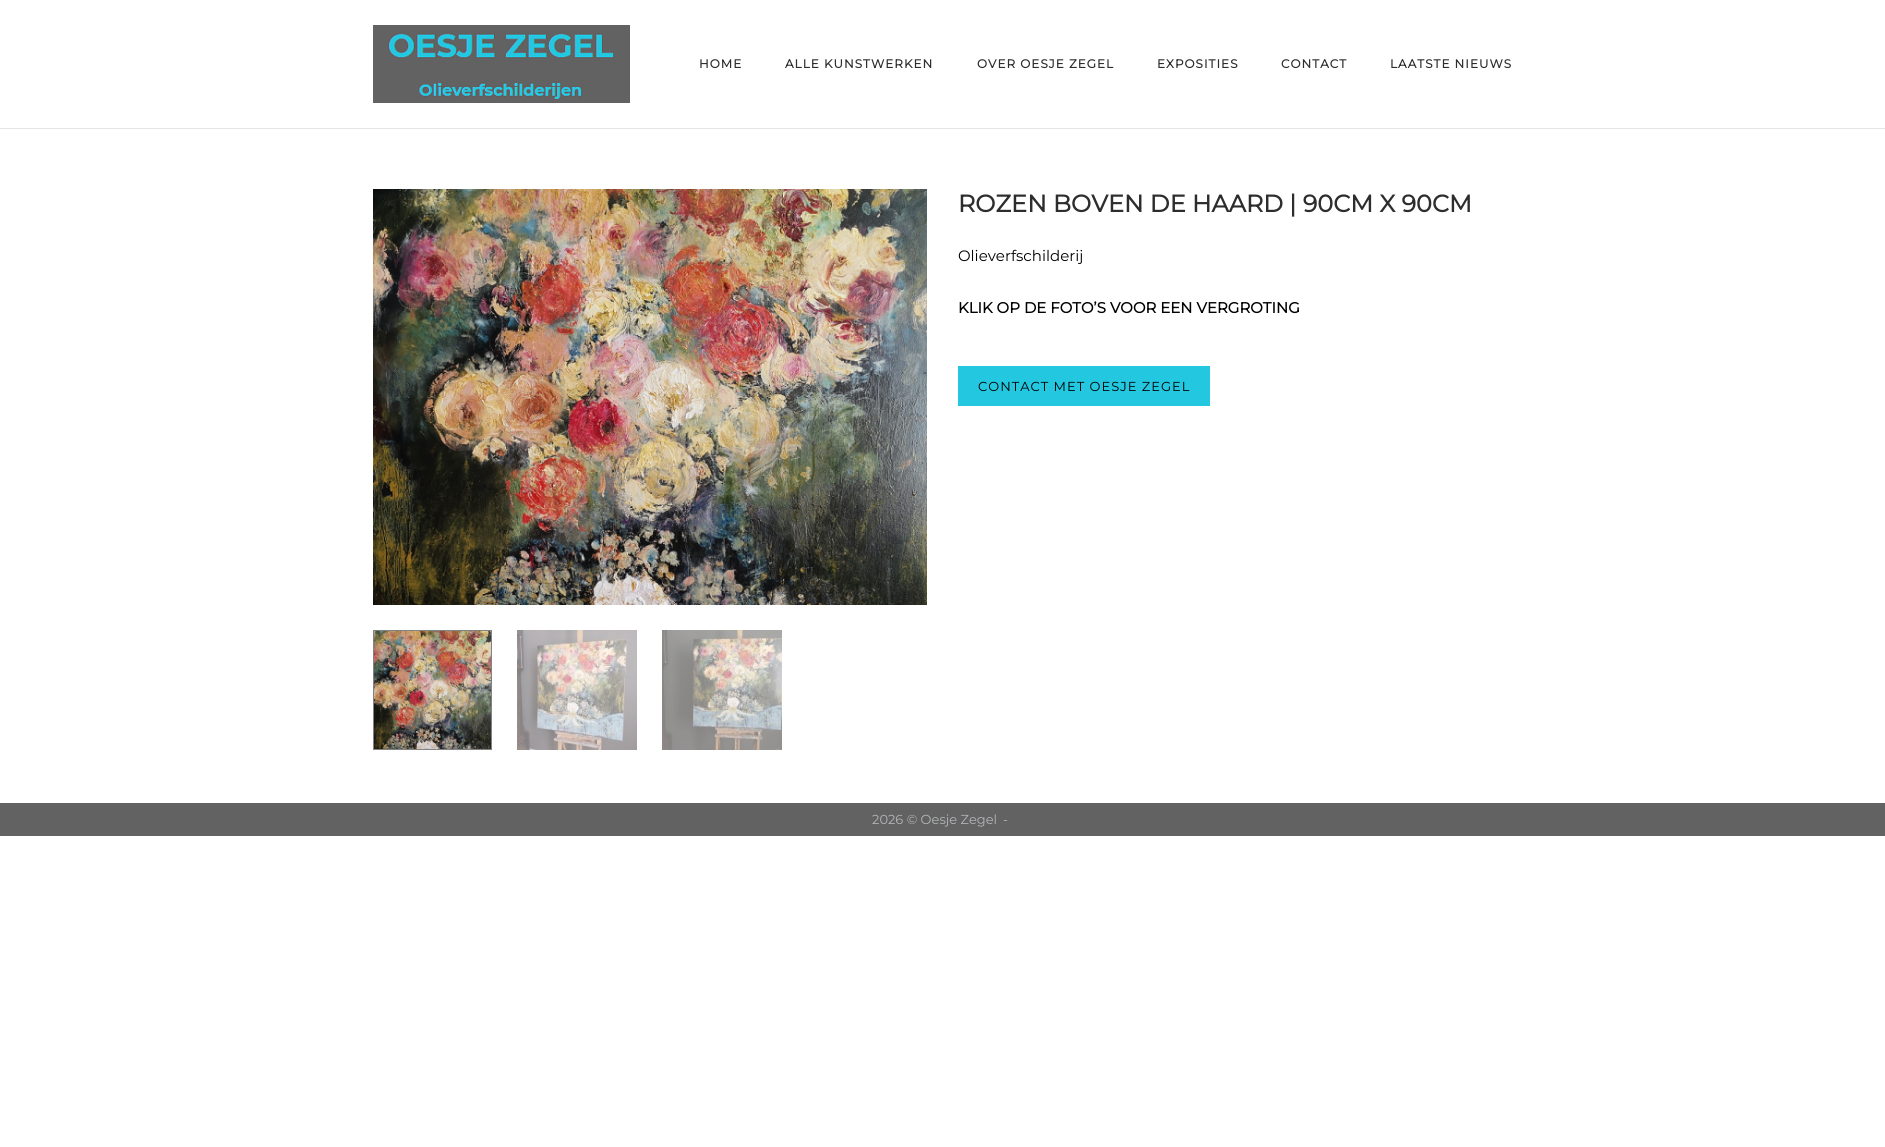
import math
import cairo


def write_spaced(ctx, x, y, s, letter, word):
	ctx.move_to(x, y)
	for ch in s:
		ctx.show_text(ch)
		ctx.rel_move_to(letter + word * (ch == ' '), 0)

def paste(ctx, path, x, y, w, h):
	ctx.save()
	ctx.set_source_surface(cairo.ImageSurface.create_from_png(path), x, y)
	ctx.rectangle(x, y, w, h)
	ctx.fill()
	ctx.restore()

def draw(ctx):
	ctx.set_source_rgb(1, 1, 1)
	ctx.paint()
	ctx.set_source_rgb(0.902, 0.902, 0.902)
	ctx.rectangle(0, 128, 1885, 1)
	ctx.fill()
	paste(ctx, 'media/1.png', 373, 25, 257, 78)
	ctx.select_font_face('Montserrat', cairo.FONT_SLANT_NORMAL, cairo.FONT_WEIGHT_BOLD)
	ctx.set_font_size(12)
	ctx.set_source_rgb(0.176, 0.176, 0.176)
	for x, y, s in [
		(699, 68, 'HOME'),
		(785, 68, 'ALLE KUNSTWERKEN'),
		(977, 68, 'OVER OESJE ZEGEL'),
		(1157, 68, 'EXPOSITIES'),
		(1281, 68, 'CONTACT'),
		(1390, 68, 'LAATSTE NIEUWS'),
	]:
		write_spaced(ctx, x, y, s, 1, 0)
	paste(ctx, 'media/2.png', 373, 189, 554, 416)
	ctx.rectangle(373.5, 630.5, 118, 119)
	ctx.set_source_rgb(0.51, 0.51, 0.51)
	ctx.set_line_width(1)
	ctx.stroke()
	paste(ctx, 'media/3.png', 374, 631, 117, 118)
	paste(ctx, 'media/4.png', 517, 630, 120, 120)
	paste(ctx, 'media/5.png', 662, 630, 120, 120)
	ctx.set_font_size(24)
	ctx.set_source_rgb(0.176, 0.176, 0.176)
	ctx.move_to(958, 212)
	ctx.show_text('ROZEN BOVEN DE HAARD | 90CM X 90CM')
	ctx.select_font_face('Montserrat Thin')
	ctx.set_font_size(15)
	ctx.set_source_rgb(0, 0, 0)
	ctx.move_to(958, 261)
	ctx.show_text('Olieverfschilderij')
	ctx.select_font_face('Montserrat', cairo.FONT_SLANT_NORMAL, cairo.FONT_WEIGHT_BOLD)
	ctx.move_to(958, 313)
	ctx.show_text('KLIK OP DE FOTO’S VOOR EEN VERGROTING')
	ctx.set_source_rgb(0.137, 0.78, 0.878)
	ctx.rectangle(958, 366, 252, 40)
	ctx.fill()
	ctx.select_font_face('Montserrat Thin')
	ctx.set_font_size(13)
	ctx.set_source_rgb(0, 0, 0)
	write_spaced(ctx, 978, 391, 'CONTACT MET OESJE ZEGEL', 1, 0)
	ctx.set_source_rgb(0.384, 0.384, 0.384)
	ctx.rectangle(0, 803, 1885, 33)
	ctx.fill()
	ctx.set_source_rgb(0.706, 0.71, 0.722)
	ctx.move_to(872, 824)
	ctx.show_text('2026 © Oesje Zegel')
	ctx.move_to(1003, 824)
	ctx.show_text('-')


surface = cairo.ImageSurface(cairo.FORMAT_RGB24, 1885, 1147)
ctx = cairo.Context(surface)
options = cairo.FontOptions()
options.set_hint_metrics(cairo.HINT_METRICS_OFF)
options.set_hint_style(cairo.HINT_STYLE_NONE)
ctx.set_font_options(options)
ctx.set_miter_limit(4)
draw(ctx)
surface.write_to_png('image.png')
